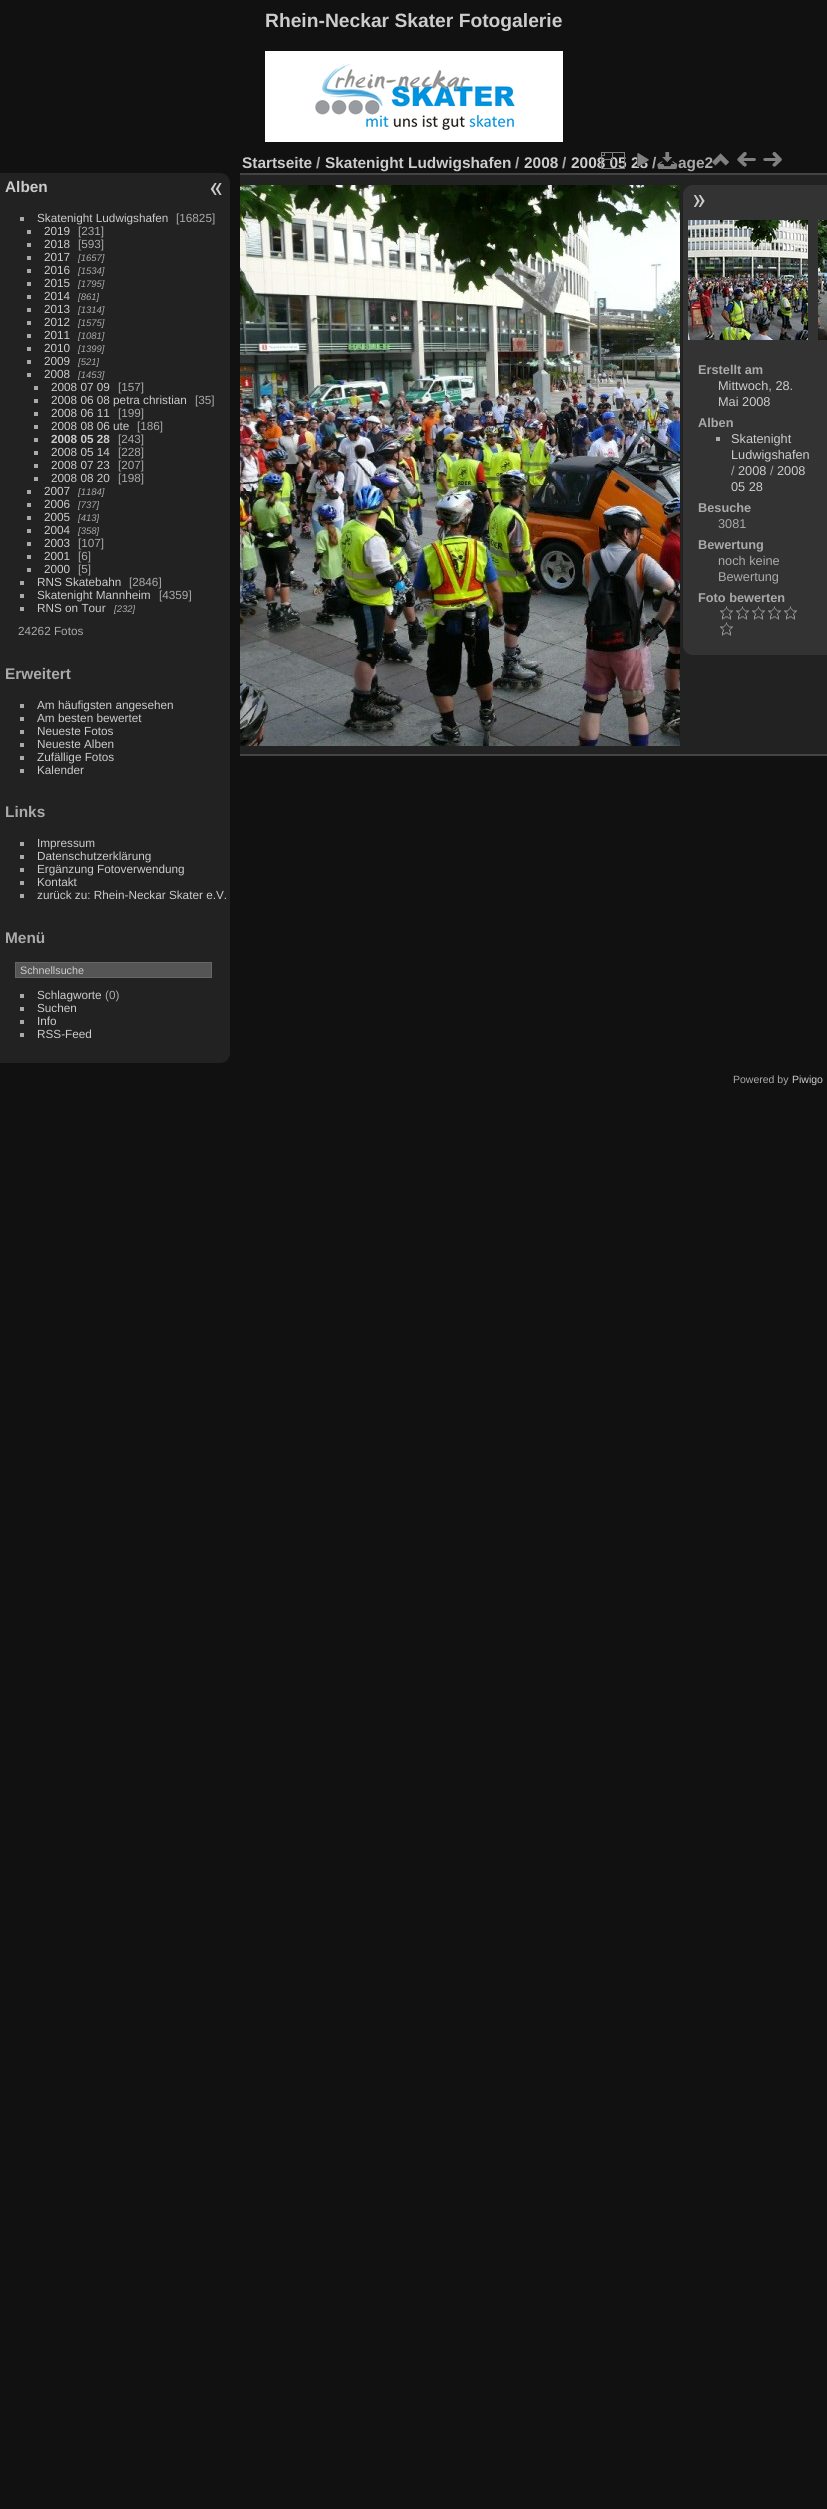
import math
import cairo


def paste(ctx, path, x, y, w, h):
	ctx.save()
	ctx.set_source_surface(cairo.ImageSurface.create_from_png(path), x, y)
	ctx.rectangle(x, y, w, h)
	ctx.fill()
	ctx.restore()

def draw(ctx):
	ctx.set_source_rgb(0.067, 0.067, 0.067)
	ctx.paint()
	ctx.select_font_face('Liberation Sans', cairo.FONT_SLANT_NORMAL, cairo.FONT_WEIGHT_BOLD)
	ctx.set_font_size(19.25)
	ctx.set_source_rgb(0.8, 0.8, 0.8)
	ctx.move_to(265, 27)
	ctx.show_text('Rhein-Neckar Skater Fotogalerie')
	paste(ctx, 'media/1.png', 265, 51, 298, 91)
	ctx.set_source_rgb(0.133, 0.133, 0.133)
	ctx.new_path()
	ctx.move_to(0, 173)
	ctx.line_to(220, 173)
	ctx.curve_to(225.5, 173, 230, 177.5, 230, 183)
	ctx.line_to(230, 1053)
	ctx.curve_to(230, 1058.5, 225.5, 1063, 220, 1063)
	ctx.line_to(0, 1063)
	ctx.close_path()
	ctx.fill()
	ctx.set_font_size(15.4)
	ctx.set_source_rgb(0.8, 0.8, 0.8)
	ctx.move_to(5, 192)
	ctx.show_text('Alben')
	ctx.set_source_rgb(0.667, 0.667, 0.667)
	ctx.rectangle(20, 217, 4, 4)
	ctx.fill()
	ctx.select_font_face('Liberation Sans')
	ctx.set_font_size(11.75)
	ctx.set_source_rgb(0.8, 0.8, 0.8)
	ctx.move_to(37, 222)
	ctx.show_text('Skatenight Ludwigshafen')
	ctx.set_source_rgb(0.667, 0.667, 0.667)
	ctx.move_to(176, 222)
	ctx.show_text('[16825]')
	ctx.rectangle(27, 230, 4, 4)
	ctx.fill()
	ctx.set_source_rgb(0.8, 0.8, 0.8)
	ctx.move_to(44, 235)
	ctx.show_text('2019')
	ctx.set_source_rgb(0.667, 0.667, 0.667)
	ctx.move_to(78, 235)
	ctx.show_text('[231]')
	ctx.rectangle(27, 243, 4, 4)
	ctx.fill()
	ctx.set_source_rgb(0.8, 0.8, 0.8)
	ctx.move_to(44, 248)
	ctx.show_text('2018')
	ctx.set_source_rgb(0.667, 0.667, 0.667)
	ctx.move_to(78, 248)
	ctx.show_text('[593]')
	ctx.rectangle(27, 256, 4, 4)
	ctx.fill()
	ctx.set_source_rgb(0.8, 0.8, 0.8)
	ctx.move_to(44, 261)
	ctx.show_text('2017')
	ctx.select_font_face('Liberation Sans', cairo.FONT_SLANT_ITALIC)
	ctx.set_font_size(9.5)
	ctx.set_source_rgb(0.667, 0.667, 0.667)
	ctx.move_to(78, 261)
	ctx.show_text('[1657]')
	ctx.rectangle(27, 269, 4, 4)
	ctx.fill()
	ctx.select_font_face('Liberation Sans')
	ctx.set_font_size(11.75)
	ctx.set_source_rgb(0.8, 0.8, 0.8)
	ctx.move_to(44, 274)
	ctx.show_text('2016')
	ctx.select_font_face('Liberation Sans', cairo.FONT_SLANT_ITALIC)
	ctx.set_font_size(9.5)
	ctx.set_source_rgb(0.667, 0.667, 0.667)
	ctx.move_to(78, 274)
	ctx.show_text('[1534]')
	ctx.rectangle(27, 282, 4, 4)
	ctx.fill()
	ctx.select_font_face('Liberation Sans')
	ctx.set_font_size(11.75)
	ctx.set_source_rgb(0.8, 0.8, 0.8)
	ctx.move_to(44, 287)
	ctx.show_text('2015')
	ctx.select_font_face('Liberation Sans', cairo.FONT_SLANT_ITALIC)
	ctx.set_font_size(9.5)
	ctx.set_source_rgb(0.667, 0.667, 0.667)
	ctx.move_to(78, 287)
	ctx.show_text('[1795]')
	ctx.rectangle(27, 295, 4, 4)
	ctx.fill()
	ctx.select_font_face('Liberation Sans')
	ctx.set_font_size(11.75)
	ctx.set_source_rgb(0.8, 0.8, 0.8)
	ctx.move_to(44, 300)
	ctx.show_text('2014')
	ctx.select_font_face('Liberation Sans', cairo.FONT_SLANT_ITALIC)
	ctx.set_font_size(9.5)
	ctx.set_source_rgb(0.667, 0.667, 0.667)
	ctx.move_to(78, 300)
	ctx.show_text('[861]')
	ctx.rectangle(27, 308, 4, 4)
	ctx.fill()
	ctx.select_font_face('Liberation Sans')
	ctx.set_font_size(11.75)
	ctx.set_source_rgb(0.8, 0.8, 0.8)
	ctx.move_to(44, 313)
	ctx.show_text('2013')
	ctx.select_font_face('Liberation Sans', cairo.FONT_SLANT_ITALIC)
	ctx.set_font_size(9.5)
	ctx.set_source_rgb(0.667, 0.667, 0.667)
	ctx.move_to(78, 313)
	ctx.show_text('[1314]')
	ctx.rectangle(27, 321, 4, 4)
	ctx.fill()
	ctx.select_font_face('Liberation Sans')
	ctx.set_font_size(11.75)
	ctx.set_source_rgb(0.8, 0.8, 0.8)
	ctx.move_to(44, 326)
	ctx.show_text('2012')
	ctx.select_font_face('Liberation Sans', cairo.FONT_SLANT_ITALIC)
	ctx.set_font_size(9.5)
	ctx.set_source_rgb(0.667, 0.667, 0.667)
	ctx.move_to(78, 326)
	ctx.show_text('[1575]')
	ctx.rectangle(27, 334, 4, 4)
	ctx.fill()
	ctx.select_font_face('Liberation Sans')
	ctx.set_font_size(11.75)
	ctx.set_source_rgb(0.8, 0.8, 0.8)
	ctx.move_to(44, 339)
	ctx.show_text('2011')
	ctx.select_font_face('Liberation Sans', cairo.FONT_SLANT_ITALIC)
	ctx.set_font_size(9.5)
	ctx.set_source_rgb(0.667, 0.667, 0.667)
	ctx.move_to(78, 339)
	ctx.show_text('[1081]')
	ctx.rectangle(27, 347, 4, 4)
	ctx.fill()
	ctx.select_font_face('Liberation Sans')
	ctx.set_font_size(11.75)
	ctx.set_source_rgb(0.8, 0.8, 0.8)
	ctx.move_to(44, 352)
	ctx.show_text('2010')
	ctx.select_font_face('Liberation Sans', cairo.FONT_SLANT_ITALIC)
	ctx.set_font_size(9.5)
	ctx.set_source_rgb(0.667, 0.667, 0.667)
	ctx.move_to(78, 352)
	ctx.show_text('[1399]')
	ctx.rectangle(27, 360, 4, 4)
	ctx.fill()
	ctx.select_font_face('Liberation Sans')
	ctx.set_font_size(11.75)
	ctx.set_source_rgb(0.8, 0.8, 0.8)
	ctx.move_to(44, 365)
	ctx.show_text('2009')
	ctx.select_font_face('Liberation Sans', cairo.FONT_SLANT_ITALIC)
	ctx.set_font_size(9.5)
	ctx.set_source_rgb(0.667, 0.667, 0.667)
	ctx.move_to(78, 365)
	ctx.show_text('[521]')
	ctx.rectangle(27, 373, 4, 4)
	ctx.fill()
	ctx.select_font_face('Liberation Sans')
	ctx.set_font_size(11.75)
	ctx.set_source_rgb(0.8, 0.8, 0.8)
	ctx.move_to(44, 378)
	ctx.show_text('2008')
	ctx.select_font_face('Liberation Sans', cairo.FONT_SLANT_ITALIC)
	ctx.set_font_size(9.5)
	ctx.set_source_rgb(0.667, 0.667, 0.667)
	ctx.move_to(78, 378)
	ctx.show_text('[1453]')
	ctx.rectangle(34, 386, 4, 4)
	ctx.fill()
	ctx.select_font_face('Liberation Sans')
	ctx.set_font_size(11.75)
	ctx.set_source_rgb(0.8, 0.8, 0.8)
	ctx.move_to(51, 391)
	ctx.show_text('2008 07 09')
	ctx.set_source_rgb(0.667, 0.667, 0.667)
	ctx.move_to(118, 391)
	ctx.show_text('[157]')
	ctx.rectangle(34, 399, 4, 4)
	ctx.fill()
	ctx.set_source_rgb(0.8, 0.8, 0.8)
	ctx.move_to(51, 404)
	ctx.show_text('2008 06 08 petra christian')
	ctx.set_source_rgb(0.667, 0.667, 0.667)
	ctx.move_to(195, 404)
	ctx.show_text('[35]')
	ctx.rectangle(34, 412, 4, 4)
	ctx.fill()
	ctx.set_source_rgb(0.8, 0.8, 0.8)
	ctx.move_to(51, 417)
	ctx.show_text('2008 06 11')
	ctx.set_source_rgb(0.667, 0.667, 0.667)
	ctx.move_to(118, 417)
	ctx.show_text('[199]')
	ctx.rectangle(34, 425, 4, 4)
	ctx.fill()
	ctx.set_source_rgb(0.8, 0.8, 0.8)
	ctx.move_to(51, 430)
	ctx.show_text('2008 08 06 ute')
	ctx.set_source_rgb(0.667, 0.667, 0.667)
	ctx.move_to(137, 430)
	ctx.show_text('[186]')
	ctx.rectangle(34, 438, 4, 4)
	ctx.fill()
	ctx.select_font_face('Liberation Sans', cairo.FONT_SLANT_NORMAL, cairo.FONT_WEIGHT_BOLD)
	ctx.set_source_rgb(0.8, 0.8, 0.8)
	ctx.move_to(51, 443)
	ctx.show_text('2008 05 28')
	ctx.select_font_face('Liberation Sans')
	ctx.set_source_rgb(0.667, 0.667, 0.667)
	ctx.move_to(118, 443)
	ctx.show_text('[243]')
	ctx.rectangle(34, 451, 4, 4)
	ctx.fill()
	ctx.set_source_rgb(0.8, 0.8, 0.8)
	ctx.move_to(51, 456)
	ctx.show_text('2008 05 14')
	ctx.set_source_rgb(0.667, 0.667, 0.667)
	ctx.move_to(118, 456)
	ctx.show_text('[228]')
	ctx.rectangle(34, 464, 4, 4)
	ctx.fill()
	ctx.set_source_rgb(0.8, 0.8, 0.8)
	ctx.move_to(51, 469)
	ctx.show_text('2008 07 23')
	ctx.set_source_rgb(0.667, 0.667, 0.667)
	ctx.move_to(118, 469)
	ctx.show_text('[207]')
	ctx.rectangle(34, 477, 4, 4)
	ctx.fill()
	ctx.set_source_rgb(0.8, 0.8, 0.8)
	ctx.move_to(51, 482)
	ctx.show_text('2008 08 20')
	ctx.set_source_rgb(0.667, 0.667, 0.667)
	ctx.move_to(118, 482)
	ctx.show_text('[198]')
	ctx.rectangle(27, 490, 4, 4)
	ctx.fill()
	ctx.set_source_rgb(0.8, 0.8, 0.8)
	ctx.move_to(44, 495)
	ctx.show_text('2007')
	ctx.select_font_face('Liberation Sans', cairo.FONT_SLANT_ITALIC)
	ctx.set_font_size(9.5)
	ctx.set_source_rgb(0.667, 0.667, 0.667)
	ctx.move_to(78, 495)
	ctx.show_text('[1184]')
	ctx.rectangle(27, 503, 4, 4)
	ctx.fill()
	ctx.select_font_face('Liberation Sans')
	ctx.set_font_size(11.75)
	ctx.set_source_rgb(0.8, 0.8, 0.8)
	ctx.move_to(44, 508)
	ctx.show_text('2006')
	ctx.select_font_face('Liberation Sans', cairo.FONT_SLANT_ITALIC)
	ctx.set_font_size(9.5)
	ctx.set_source_rgb(0.667, 0.667, 0.667)
	ctx.move_to(78, 508)
	ctx.show_text('[737]')
	ctx.rectangle(27, 516, 4, 4)
	ctx.fill()
	ctx.select_font_face('Liberation Sans')
	ctx.set_font_size(11.75)
	ctx.set_source_rgb(0.8, 0.8, 0.8)
	ctx.move_to(44, 521)
	ctx.show_text('2005')
	ctx.select_font_face('Liberation Sans', cairo.FONT_SLANT_ITALIC)
	ctx.set_font_size(9.5)
	ctx.set_source_rgb(0.667, 0.667, 0.667)
	ctx.move_to(78, 521)
	ctx.show_text('[413]')
	ctx.rectangle(27, 529, 4, 4)
	ctx.fill()
	ctx.select_font_face('Liberation Sans')
	ctx.set_font_size(11.75)
	ctx.set_source_rgb(0.8, 0.8, 0.8)
	ctx.move_to(44, 534)
	ctx.show_text('2004')
	ctx.select_font_face('Liberation Sans', cairo.FONT_SLANT_ITALIC)
	ctx.set_font_size(9.5)
	ctx.set_source_rgb(0.667, 0.667, 0.667)
	ctx.move_to(78, 534)
	ctx.show_text('[358]')
	ctx.rectangle(27, 542, 4, 4)
	ctx.fill()
	ctx.select_font_face('Liberation Sans')
	ctx.set_font_size(11.75)
	ctx.set_source_rgb(0.8, 0.8, 0.8)
	ctx.move_to(44, 547)
	ctx.show_text('2003')
	ctx.set_source_rgb(0.667, 0.667, 0.667)
	ctx.move_to(78, 547)
	ctx.show_text('[107]')
	ctx.rectangle(27, 555, 4, 4)
	ctx.fill()
	ctx.set_source_rgb(0.8, 0.8, 0.8)
	ctx.move_to(44, 560)
	ctx.show_text('2001')
	ctx.set_source_rgb(0.667, 0.667, 0.667)
	ctx.move_to(78, 560)
	ctx.show_text('[6]')
	ctx.rectangle(27, 568, 4, 4)
	ctx.fill()
	ctx.set_source_rgb(0.8, 0.8, 0.8)
	ctx.move_to(44, 573)
	ctx.show_text('2000')
	ctx.set_source_rgb(0.667, 0.667, 0.667)
	ctx.move_to(78, 573)
	ctx.show_text('[5]')
	ctx.rectangle(20, 581, 4, 4)
	ctx.fill()
	ctx.set_source_rgb(0.8, 0.8, 0.8)
	ctx.move_to(37, 586)
	ctx.show_text('RNS Skatebahn')
	ctx.set_source_rgb(0.667, 0.667, 0.667)
	ctx.move_to(129, 586)
	ctx.show_text('[2846]')
	ctx.rectangle(20, 594, 4, 4)
	ctx.fill()
	ctx.set_source_rgb(0.8, 0.8, 0.8)
	ctx.move_to(37, 599)
	ctx.show_text('Skatenight Mannheim')
	ctx.set_source_rgb(0.667, 0.667, 0.667)
	ctx.move_to(159, 599)
	ctx.show_text('[4359]')
	ctx.rectangle(20, 607, 4, 4)
	ctx.fill()
	ctx.set_source_rgb(0.8, 0.8, 0.8)
	ctx.move_to(37, 612)
	ctx.show_text('RNS on Tour')
	ctx.select_font_face('Liberation Sans', cairo.FONT_SLANT_ITALIC)
	ctx.set_font_size(9.5)
	ctx.set_source_rgb(0.667, 0.667, 0.667)
	ctx.move_to(114, 612)
	ctx.show_text('[232]')
	ctx.select_font_face('Liberation Sans')
	ctx.set_font_size(11.75)
	ctx.move_to(18, 635)
	ctx.show_text('24262 Fotos')
	ctx.select_font_face('Liberation Sans', cairo.FONT_SLANT_NORMAL, cairo.FONT_WEIGHT_BOLD)
	ctx.set_font_size(15.4)
	ctx.move_to(5, 679)
	ctx.show_text('Erweitert')
	ctx.rectangle(20, 704, 4, 4)
	ctx.fill()
	ctx.select_font_face('Liberation Sans')
	ctx.set_font_size(11.75)
	ctx.set_source_rgb(0.8, 0.8, 0.8)
	ctx.move_to(37, 709)
	ctx.show_text('Am häufigsten angesehen')
	ctx.set_source_rgb(0.667, 0.667, 0.667)
	ctx.rectangle(20, 717, 4, 4)
	ctx.fill()
	ctx.set_source_rgb(0.8, 0.8, 0.8)
	ctx.move_to(37, 722)
	ctx.show_text('Am besten bewertet')
	ctx.set_source_rgb(0.667, 0.667, 0.667)
	ctx.rectangle(20, 730, 4, 4)
	ctx.fill()
	ctx.set_source_rgb(0.8, 0.8, 0.8)
	ctx.move_to(37, 735)
	ctx.show_text('Neueste Fotos')
	ctx.set_source_rgb(0.667, 0.667, 0.667)
	ctx.rectangle(20, 743, 4, 4)
	ctx.fill()
	ctx.set_source_rgb(0.8, 0.8, 0.8)
	ctx.move_to(37, 748)
	ctx.show_text('Neueste Alben')
	ctx.set_source_rgb(0.667, 0.667, 0.667)
	ctx.rectangle(20, 756, 4, 4)
	ctx.fill()
	ctx.set_source_rgb(0.8, 0.8, 0.8)
	ctx.move_to(37, 761)
	ctx.show_text('Zufällige Fotos')
	ctx.set_source_rgb(0.667, 0.667, 0.667)
	ctx.rectangle(20, 769, 4, 4)
	ctx.fill()
	ctx.set_source_rgb(0.8, 0.8, 0.8)
	ctx.move_to(37, 774)
	ctx.show_text('Kalender')
	ctx.select_font_face('Liberation Sans', cairo.FONT_SLANT_NORMAL, cairo.FONT_WEIGHT_BOLD)
	ctx.set_font_size(15.4)
	ctx.set_source_rgb(0.667, 0.667, 0.667)
	ctx.move_to(5, 817)
	ctx.show_text('Links')
	ctx.rectangle(20, 842, 4, 4)
	ctx.fill()
	ctx.select_font_face('Liberation Sans')
	ctx.set_font_size(11.75)
	ctx.set_source_rgb(0.8, 0.8, 0.8)
	ctx.move_to(37, 847)
	ctx.show_text('Impressum')
	ctx.set_source_rgb(0.667, 0.667, 0.667)
	ctx.rectangle(20, 855, 4, 4)
	ctx.fill()
	ctx.set_source_rgb(0.8, 0.8, 0.8)
	ctx.move_to(37, 860)
	ctx.show_text('Datenschutzerklärung')
	ctx.set_source_rgb(0.667, 0.667, 0.667)
	ctx.rectangle(20, 868, 4, 4)
	ctx.fill()
	ctx.set_source_rgb(0.8, 0.8, 0.8)
	ctx.move_to(37, 873)
	ctx.show_text('Ergänzung Fotoverwendung')
	ctx.set_source_rgb(0.667, 0.667, 0.667)
	ctx.rectangle(20, 881, 4, 4)
	ctx.fill()
	ctx.set_source_rgb(0.8, 0.8, 0.8)
	ctx.move_to(37, 886)
	ctx.show_text('Kontakt')
	ctx.set_source_rgb(0.667, 0.667, 0.667)
	ctx.rectangle(20, 894, 4, 4)
	ctx.fill()
	ctx.set_source_rgb(0.8, 0.8, 0.8)
	ctx.move_to(37, 899)
	ctx.show_text('zurück zu: Rhein-Neckar Skater e.V.')
	ctx.select_font_face('Liberation Sans', cairo.FONT_SLANT_NORMAL, cairo.FONT_WEIGHT_BOLD)
	ctx.set_font_size(15.4)
	ctx.set_source_rgb(0.667, 0.667, 0.667)
	ctx.move_to(5, 943)
	ctx.show_text('Menü')
	ctx.set_source_rgb(0.333, 0.333, 0.333)
	ctx.rectangle(15.5, 962.5, 196, 15)
	ctx.fill_preserve()
	ctx.set_source_rgb(0.4, 0.4, 0.4)
	ctx.set_line_width(1)
	ctx.stroke()
	ctx.select_font_face('Liberation Sans')
	ctx.set_font_size(10.75)
	ctx.set_source_rgb(0.8, 0.8, 0.8)
	ctx.move_to(20, 974)
	ctx.show_text('Schnellsuche')
	ctx.set_source_rgb(0.667, 0.667, 0.667)
	ctx.rectangle(20, 994, 4, 4)
	ctx.fill()
	ctx.set_font_size(11.75)
	ctx.set_source_rgb(0.8, 0.8, 0.8)
	ctx.move_to(37, 999)
	ctx.show_text('Schlagworte')
	ctx.set_source_rgb(0.667, 0.667, 0.667)
	ctx.move_to(105, 999)
	ctx.show_text('(0)')
	ctx.rectangle(20, 1007, 4, 4)
	ctx.fill()
	ctx.set_source_rgb(0.8, 0.8, 0.8)
	ctx.move_to(37, 1012)
	ctx.show_text('Suchen')
	ctx.set_source_rgb(0.667, 0.667, 0.667)
	ctx.rectangle(20, 1020, 4, 4)
	ctx.fill()
	ctx.set_source_rgb(0.8, 0.8, 0.8)
	ctx.move_to(37, 1025)
	ctx.show_text('Info')
	ctx.set_source_rgb(0.667, 0.667, 0.667)
	ctx.rectangle(20, 1033, 4, 4)
	ctx.fill()
	ctx.set_source_rgb(0.8, 0.8, 0.8)
	ctx.move_to(37, 1038)
	ctx.show_text('RSS-Feed')
	ctx.set_source_rgb(0.133, 0.133, 0.133)
	ctx.rectangle(240, 175, 587, 579)
	ctx.fill()
	ctx.set_source_rgb(0.267, 0.267, 0.267)
	ctx.rectangle(240, 754, 587, 2)
	ctx.fill()
	ctx.select_font_face('Liberation Sans', cairo.FONT_SLANT_NORMAL, cairo.FONT_WEIGHT_BOLD)
	ctx.set_font_size(15.4)
	ctx.set_source_rgb(0.8, 0.8, 0.8)
	ctx.move_to(571, 168)
	ctx.show_text('2008 05 28')
	paste(ctx, 'media/2.png', 601, 152, 24, 17)
	paste(ctx, 'media/3.png', 637, 153, 12, 14)
	paste(ctx, 'media/4.png', 657, 152, 21, 17)
	ctx.set_source_rgb(0.667, 0.667, 0.667)
	ctx.move_to(678, 168)
	ctx.show_text('age2')
	paste(ctx, 'media/5.png', 712, 153, 17, 13)
	paste(ctx, 'media/6.png', 737, 152, 19, 15)
	paste(ctx, 'media/7.png', 763, 152, 19, 15)
	ctx.set_source_rgb(0.267, 0.267, 0.267)
	ctx.rectangle(240, 173, 587, 2)
	ctx.fill()
	ctx.set_source_rgb(0.8, 0.8, 0.8)
	ctx.move_to(242, 168)
	ctx.show_text('Startseite')
	ctx.set_source_rgb(0.667, 0.667, 0.667)
	ctx.move_to(316, 168)
	ctx.show_text('/')
	ctx.set_source_rgb(0.8, 0.8, 0.8)
	ctx.move_to(325, 168)
	ctx.show_text('Skatenight Ludwigshafen')
	ctx.set_source_rgb(0.667, 0.667, 0.667)
	ctx.move_to(515, 168)
	ctx.show_text('/')
	ctx.set_source_rgb(0.8, 0.8, 0.8)
	ctx.move_to(524, 168)
	ctx.show_text('2008')
	ctx.set_source_rgb(0.667, 0.667, 0.667)
	ctx.move_to(562, 168)
	ctx.show_text('/')
	ctx.move_to(652, 168)
	ctx.show_text('/')
	paste(ctx, 'media/8.png', 240, 185, 440, 561)
	ctx.set_source_rgb(0.2, 0.2, 0.2)
	ctx.new_path()
	ctx.move_to(693, 185)
	ctx.line_to(827, 185)
	ctx.line_to(827, 655)
	ctx.line_to(693, 655)
	ctx.curve_to(687.5, 655, 683, 650.5, 683, 645)
	ctx.line_to(683, 195)
	ctx.curve_to(683, 189.5, 687.5, 185, 693, 185)
	ctx.close_path()
	ctx.fill()
	paste(ctx, 'media/9.png', 693, 195, 12, 12)
	paste(ctx, 'media/10.png', 688, 220, 120, 120)
	paste(ctx, 'media/11.png', 818, 220, 9, 120)
	ctx.set_font_size(12.75)
	ctx.set_source_rgb(0.667, 0.667, 0.667)
	ctx.move_to(698, 374)
	ctx.show_text('Erstellt am')
	ctx.select_font_face('Liberation Sans')
	ctx.set_source_rgb(0.8, 0.8, 0.8)
	ctx.move_to(718, 390)
	ctx.show_text('Mittwoch, 28.')
	ctx.move_to(718, 406)
	ctx.show_text('Mai 2008')
	ctx.select_font_face('Liberation Sans', cairo.FONT_SLANT_NORMAL, cairo.FONT_WEIGHT_BOLD)
	ctx.set_source_rgb(0.667, 0.667, 0.667)
	ctx.move_to(698, 427)
	ctx.show_text('Alben')
	ctx.rectangle(716, 437, 4, 4)
	ctx.fill()
	ctx.select_font_face('Liberation Sans')
	ctx.set_source_rgb(0.8, 0.8, 0.8)
	ctx.move_to(731, 443)
	ctx.show_text('Skatenight')
	ctx.move_to(731, 459)
	ctx.show_text('Ludwigshafen')
	ctx.set_source_rgb(0.667, 0.667, 0.667)
	ctx.move_to(731, 475)
	ctx.show_text('/')
	ctx.set_source_rgb(0.8, 0.8, 0.8)
	ctx.move_to(738, 475)
	ctx.show_text('2008')
	ctx.set_source_rgb(0.667, 0.667, 0.667)
	ctx.move_to(770, 475)
	ctx.show_text('/')
	ctx.set_source_rgb(0.8, 0.8, 0.8)
	ctx.move_to(777, 475)
	ctx.show_text('2008')
	ctx.move_to(731, 491)
	ctx.show_text('05 28')
	ctx.select_font_face('Liberation Sans', cairo.FONT_SLANT_NORMAL, cairo.FONT_WEIGHT_BOLD)
	ctx.set_source_rgb(0.667, 0.667, 0.667)
	ctx.move_to(698, 512)
	ctx.show_text('Besuche')
	ctx.select_font_face('Liberation Sans')
	ctx.move_to(718, 528)
	ctx.show_text('3081')
	ctx.select_font_face('Liberation Sans', cairo.FONT_SLANT_NORMAL, cairo.FONT_WEIGHT_BOLD)
	ctx.move_to(698, 549)
	ctx.show_text('Bewertung')
	ctx.select_font_face('Liberation Sans')
	ctx.move_to(718, 565)
	ctx.show_text('noch keine')
	ctx.move_to(718, 581)
	ctx.show_text('Bewertung')
	ctx.select_font_face('Liberation Sans', cairo.FONT_SLANT_NORMAL, cairo.FONT_WEIGHT_BOLD)
	ctx.move_to(698, 602)
	ctx.show_text('Foto bewerten')
	paste(ctx, 'media/12.png', 720, 606, 13, 14)
	paste(ctx, 'media/12.png', 736, 606, 13, 14)
	paste(ctx, 'media/12.png', 752, 606, 13, 14)
	paste(ctx, 'media/12.png', 768, 606, 13, 14)
	paste(ctx, 'media/12.png', 784, 606, 13, 14)
	paste(ctx, 'media/12.png', 720, 622, 13, 14)
	paste(ctx, 'media/13.png', 210, 183, 12, 12)
	ctx.select_font_face('Liberation Sans')
	ctx.set_font_size(10.5)
	ctx.move_to(733, 1083)
	ctx.show_text('Powered by')
	ctx.set_source_rgb(0.8, 0.8, 0.8)
	ctx.move_to(792, 1083)
	ctx.show_text('Piwigo')


surface = cairo.ImageSurface(cairo.FORMAT_RGB24, 827, 2509)
ctx = cairo.Context(surface)
options = cairo.FontOptions()
options.set_hint_metrics(cairo.HINT_METRICS_OFF)
options.set_hint_style(cairo.HINT_STYLE_NONE)
ctx.set_font_options(options)
ctx.set_miter_limit(4)
draw(ctx)
surface.write_to_png('image.png')
